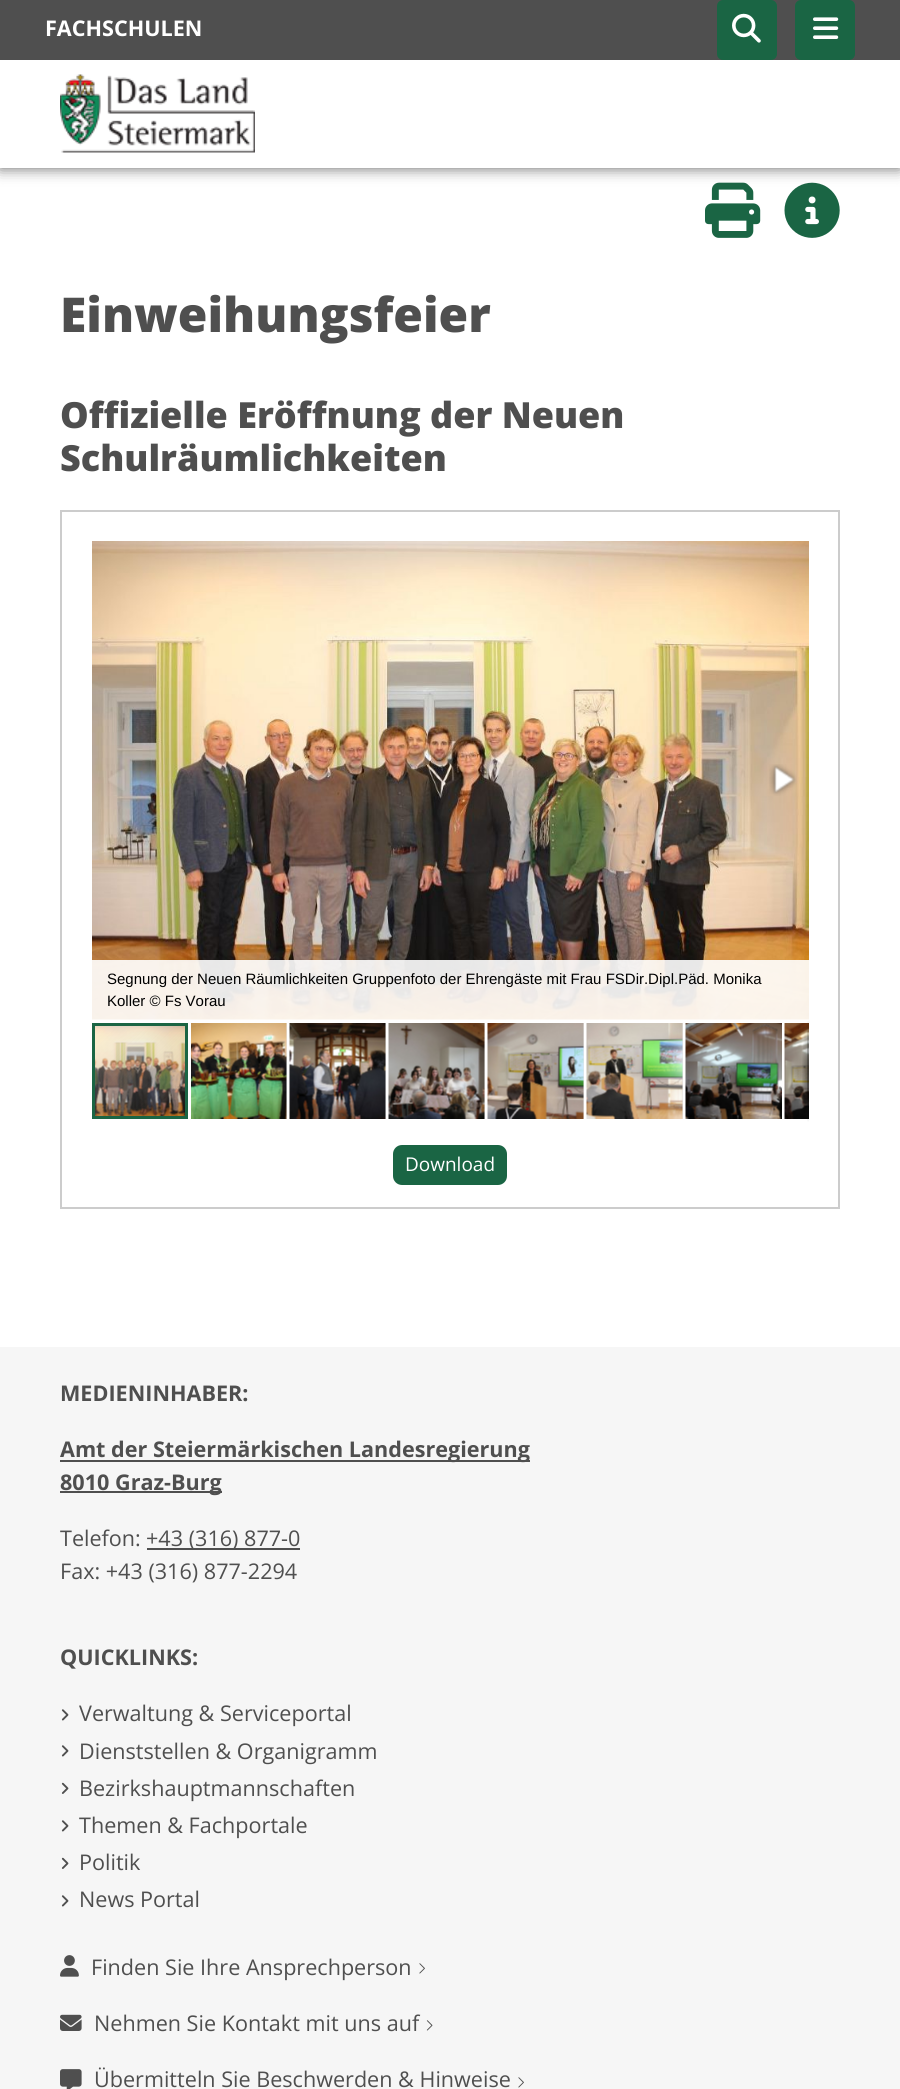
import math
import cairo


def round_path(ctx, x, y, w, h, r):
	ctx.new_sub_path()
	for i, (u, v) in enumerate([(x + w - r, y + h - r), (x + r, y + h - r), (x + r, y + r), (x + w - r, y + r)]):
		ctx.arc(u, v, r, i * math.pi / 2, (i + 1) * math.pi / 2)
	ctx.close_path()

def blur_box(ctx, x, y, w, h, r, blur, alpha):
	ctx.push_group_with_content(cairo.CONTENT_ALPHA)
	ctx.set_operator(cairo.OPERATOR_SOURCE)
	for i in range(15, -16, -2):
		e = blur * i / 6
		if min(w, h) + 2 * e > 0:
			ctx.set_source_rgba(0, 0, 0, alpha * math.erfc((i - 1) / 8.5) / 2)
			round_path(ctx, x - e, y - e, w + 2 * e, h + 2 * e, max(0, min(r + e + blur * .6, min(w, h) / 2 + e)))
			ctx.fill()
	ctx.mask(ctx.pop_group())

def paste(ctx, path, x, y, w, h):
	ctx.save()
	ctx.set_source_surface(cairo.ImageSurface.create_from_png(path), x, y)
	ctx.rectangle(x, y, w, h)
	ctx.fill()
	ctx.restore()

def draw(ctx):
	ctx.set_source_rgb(1, 1, 1)
	ctx.paint()
	paste(ctx, 'media/4.png', 705, 182, 56, 56)
	paste(ctx, 'media/5.png', 784, 182, 56, 56)
	ctx.set_source_rgb(0.396, 0.396, 0.396)
	blur_box(ctx, 0, 0, 900, 168, 0, 7.5, 1)
	ctx.set_source_rgb(1, 1, 1)
	ctx.rectangle(0, 60, 900, 108)
	ctx.fill()
	ctx.set_source_rgb(0.31, 0.31, 0.31)
	ctx.rectangle(0, 0, 900, 60)
	ctx.fill()
	ctx.select_font_face('Open Sans', cairo.FONT_SLANT_NORMAL, cairo.FONT_WEIGHT_BOLD)
	ctx.set_font_size(21.6)
	ctx.set_source_rgb(1, 1, 1)
	ctx.move_to(45, 36)
	ctx.show_text('FACHSCHULEN')
	ctx.set_source_rgb(0.102, 0.396, 0.267)
	round_path(ctx, 717, 0, 60, 60, 6)
	ctx.fill()
	paste(ctx, 'media/1.png', 732, 13, 29, 30)
	round_path(ctx, 795, 0, 60, 60, 6)
	ctx.fill()
	paste(ctx, 'media/2.png', 813, 17, 26, 22)
	paste(ctx, 'media/3.png', 60, 74, 195, 79)
	ctx.select_font_face('Open Sans ExtraBold')
	ctx.set_font_size(48)
	ctx.set_source_rgb(0.31, 0.31, 0.31)
	ctx.move_to(60, 332)
	ctx.show_text('Einweihungsfeier')
	ctx.set_font_size(36)
	ctx.move_to(60, 428)
	ctx.show_text('Offizielle Eröffnung der Neuen')
	ctx.move_to(60, 471)
	ctx.show_text('Schulräumlichkeiten')
	ctx.rectangle(61, 511, 778, 697)
	ctx.set_source_rgb(0.8, 0.8, 0.8)
	ctx.stroke()
	paste(ctx, 'media/8.png', 92, 541, 717, 479)
	paste(ctx, 'media/6.png', 108, 769, 18, 22)
	paste(ctx, 'media/7.png', 769, 764, 28, 32)
	ctx.set_source_rgba(1, 1, 1, 0.9)
	ctx.rectangle(92, 960, 717, 60)
	ctx.fill()
	ctx.select_font_face('Liberation Sans')
	ctx.set_font_size(15)
	ctx.set_source_rgb(0, 0, 0)
	ctx.move_to(107, 984)
	ctx.show_text('Segnung der Neuen Räumlichkeiten Gruppenfoto der Ehrengäste mit Frau FSDir.Dipl.Päd. Monika')
	ctx.move_to(107, 1006)
	ctx.show_text('Koller © Fs Vorau')
	paste(ctx, 'media/15.png', 784, 1023, 25, 96)
	gradient = cairo.RadialGradient(0, 0, 0, 0, 0, 1)
	gradient.set_matrix(cairo.Matrix(1 / 7.5, 0, 0, 1 / 51, -1 * 809 / 7.5, -1 * 1071 / 51))
	gradient.add_color_stop_rgba(0, 0, 0, 0, 0.4)
	gradient.add_color_stop_rgba(1, 0, 0, 0, 0)
	ctx.set_source(gradient)
	ctx.rectangle(802, 1020, 7, 102)
	ctx.fill()
	gradient = cairo.LinearGradient(808, 1020, 808, 1122)
	gradient.add_color_stop_rgba(0, 0, 0, 0, 0)
	gradient.add_color_stop_rgba(0.25, 0, 0, 0, 0.2)
	gradient.add_color_stop_rgba(0.75, 0, 0, 0, 0.3)
	gradient.add_color_stop_rgba(1, 0, 0, 0, 0)
	ctx.set_source(gradient)
	ctx.rectangle(807, 1020, 2, 102)
	ctx.fill()
	paste(ctx, 'media/16.png', 95, 1026, 90, 90)
	ctx.rectangle(93.5, 1024.5, 93, 93)
	ctx.set_source_rgb(0.102, 0.396, 0.267)
	ctx.set_line_width(3)
	ctx.stroke()
	ctx.set_source_rgb(0.898, 0.898, 0.898)
	ctx.rectangle(286, 1023, 1, 96)
	ctx.fill()
	paste(ctx, 'media/9.png', 191, 1023, 96, 96)
	ctx.rectangle(385, 1023, 1, 96)
	ctx.fill()
	paste(ctx, 'media/10.png', 289, 1023, 97, 96)
	ctx.rectangle(484, 1023, 1, 96)
	ctx.fill()
	paste(ctx, 'media/11.png', 388, 1023, 97, 96)
	ctx.rectangle(583, 1023, 1, 96)
	ctx.fill()
	paste(ctx, 'media/12.png', 487, 1023, 97, 96)
	ctx.rectangle(682, 1023, 1, 96)
	ctx.fill()
	paste(ctx, 'media/13.png', 586, 1023, 97, 96)
	paste(ctx, 'media/14.png', 685, 1023, 97, 96)
	ctx.set_source_rgb(0.102, 0.396, 0.267)
	round_path(ctx, 393, 1145, 114, 40, 9)
	ctx.fill()
	ctx.select_font_face('Open Sans')
	ctx.set_font_size(19)
	ctx.set_source_rgb(1, 1, 1)
	ctx.move_to(405, 1171)
	ctx.show_text('Download')
	ctx.set_source_rgb(0.961, 0.961, 0.961)
	ctx.rectangle(0, 1347, 900, 742)
	ctx.fill()
	ctx.select_font_face('Open Sans', cairo.FONT_SLANT_NORMAL, cairo.FONT_WEIGHT_BOLD)
	ctx.set_font_size(21.6)
	ctx.set_source_rgb(0.31, 0.31, 0.31)
	ctx.move_to(60, 1401)
	ctx.show_text('MEDIENINHABER:')
	ctx.rectangle(60, 1460, 470, 2)
	ctx.fill()
	ctx.move_to(60, 1457)
	ctx.show_text('Amt der Steiermärkischen Landesregierung')
	ctx.rectangle(60, 1491, 162, 2)
	ctx.fill()
	ctx.move_to(60, 1490)
	ctx.show_text('8010 Graz-Burg')
	ctx.select_font_face('Open Sans')
	ctx.move_to(60, 1546)
	ctx.show_text('Telefon:')
	ctx.rectangle(147, 1548, 153, 2)
	ctx.fill()
	ctx.move_to(146, 1546)
	ctx.show_text('+43 (316) 877-0')
	ctx.move_to(60, 1579)
	ctx.show_text('Fax: +43 (316) 877-2294')
	ctx.select_font_face('Open Sans', cairo.FONT_SLANT_NORMAL, cairo.FONT_WEIGHT_BOLD)
	ctx.move_to(60, 1665)
	ctx.show_text('QUICKLINKS:')
	paste(ctx, 'media/17.png', 61, 1709, 8, 12)
	ctx.select_font_face('Open Sans')
	ctx.move_to(79, 1721)
	ctx.show_text('Verwaltung & Serviceportal')
	paste(ctx, 'media/17.png', 61, 1745, 8, 12)
	ctx.move_to(79, 1759)
	ctx.show_text('Dienststellen & Organigramm')
	paste(ctx, 'media/18.png', 61, 1782, 8, 12)
	ctx.move_to(79, 1796)
	ctx.show_text('Bezirkshauptmannschaften')
	paste(ctx, 'media/17.png', 61, 1820, 8, 12)
	ctx.move_to(79, 1833)
	ctx.show_text('Themen & Fachportale')
	paste(ctx, 'media/18.png', 61, 1857, 8, 12)
	ctx.move_to(79, 1870)
	ctx.show_text('Politik')
	paste(ctx, 'media/17.png', 61, 1895, 8, 12)
	ctx.move_to(79, 1907)
	ctx.show_text('News Portal')
	paste(ctx, 'media/19.png', 60, 1955, 19, 22)
	ctx.move_to(91, 1975)
	ctx.show_text('Finden Sie Ihre Ansprechperson')
	paste(ctx, 'media/20.png', 419, 1963, 6, 11)
	paste(ctx, 'media/21.png', 60, 2014, 22, 17)
	ctx.move_to(94, 2031)
	ctx.show_text('Nehmen Sie Kontakt mit uns auf')
	paste(ctx, 'media/22.png', 426, 2020, 7, 11)
	paste(ctx, 'media/23.png', 60, 2069, 22, 20)
	ctx.move_to(94, 2087)
	ctx.show_text('Übermitteln Sie Beschwerden & Hinweise')
	paste(ctx, 'media/20.png', 518, 2077, 6, 11)


surface = cairo.ImageSurface(cairo.FORMAT_RGB24, 900, 2089)
ctx = cairo.Context(surface)
options = cairo.FontOptions()
options.set_hint_metrics(cairo.HINT_METRICS_OFF)
options.set_hint_style(cairo.HINT_STYLE_NONE)
ctx.set_font_options(options)
ctx.set_miter_limit(4)
draw(ctx)
surface.write_to_png('image.png')
